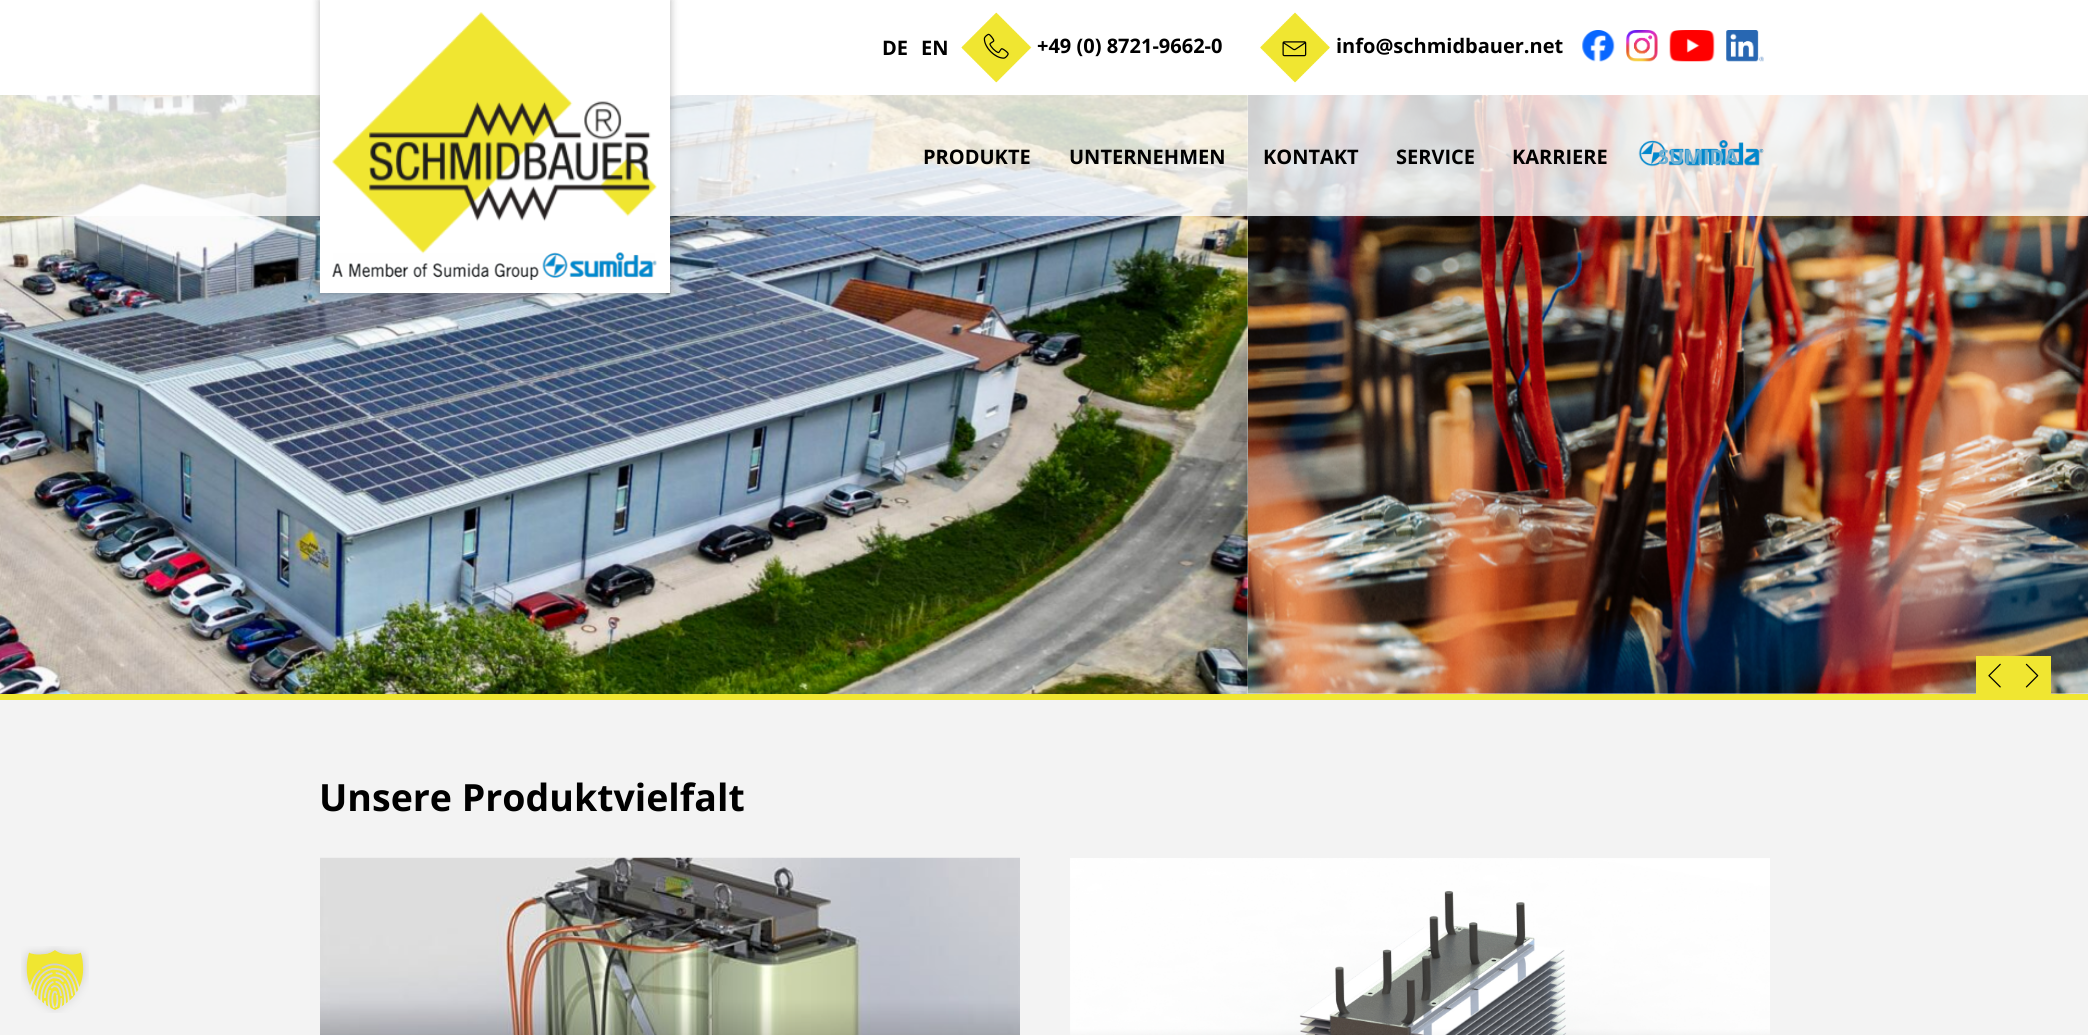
import math
import cairo


def round_path(ctx, x, y, w, h, r):
	ctx.new_sub_path()
	for i, (u, v) in enumerate([(x + w - r, y + h - r), (x + r, y + h - r), (x + r, y + r), (x + w - r, y + r)]):
		ctx.arc(u, v, r, i * math.pi / 2, (i + 1) * math.pi / 2)
	ctx.close_path()

def blur_box(ctx, x, y, w, h, r, blur, alpha):
	ctx.push_group_with_content(cairo.CONTENT_ALPHA)
	ctx.set_operator(cairo.OPERATOR_SOURCE)
	for i in range(15, -16, -2):
		e = blur * i / 6
		if min(w, h) + 2 * e > 0:
			ctx.set_source_rgba(0, 0, 0, alpha * math.erfc((i - 1) / 8.5) / 2)
			round_path(ctx, x - e, y - e, w + 2 * e, h + 2 * e, max(0, min(r + e + blur * .6, min(w, h) / 2 + e)))
			ctx.fill()
	ctx.mask(ctx.pop_group())

def paste(ctx, path, x, y, w, h):
	ctx.save()
	ctx.set_source_surface(cairo.ImageSurface.create_from_png(path), x, y)
	ctx.rectangle(x, y, w, h)
	ctx.fill()
	ctx.restore()

def draw(ctx):
	ctx.set_source_rgb(1, 1, 1)
	ctx.paint()
	paste(ctx, 'media/12.png', 0, 95, 1248, 599)
	paste(ctx, 'media/13.png', 1248, 95, 840, 599)
	ctx.set_source_rgba(1, 1, 1, 0.8)
	ctx.rectangle(0, 95, 2088, 121)
	ctx.fill()
	ctx.set_source_rgb(0, 0, 0)
	blur_box(ctx, 320, 0, 350, 293, 0, 4.5, 0.3)
	ctx.set_source_rgb(1, 1, 1)
	ctx.rectangle(320, 0, 350, 293)
	ctx.fill()
	paste(ctx, 'media/1.png', 332, 12, 325, 242)
	paste(ctx, 'media/2.png', 332, 252, 325, 28)
	ctx.select_font_face('Open Sans', cairo.FONT_SLANT_NORMAL, cairo.FONT_WEIGHT_BOLD)
	ctx.set_font_size(20)
	ctx.set_source_rgb(0, 0, 0)
	ctx.move_to(882, 55)
	ctx.show_text('DE')
	ctx.move_to(921, 55)
	ctx.show_text('EN')
	paste(ctx, 'media/3.png', 961, 12, 71, 71)
	paste(ctx, 'media/4.png', 983, 33, 26, 26)
	ctx.move_to(1037, 53)
	ctx.show_text('+49 (0) 8721-9662-0')
	paste(ctx, 'media/5.png', 1260, 12, 70, 71)
	paste(ctx, 'media/6.png', 1282, 41, 25, 16)
	ctx.move_to(1336, 53)
	ctx.show_text('info@schmidbauer.net')
	paste(ctx, 'media/7.png', 1582, 30, 33, 32)
	paste(ctx, 'media/8.png', 1626, 30, 32, 32)
	paste(ctx, 'media/9.png', 1669, 30, 46, 32)
	paste(ctx, 'media/10.png', 1726, 30, 38, 32)
	for x, y, s in [
		(923, 164, 'PRODUKTE'),
		(1069, 164, 'UNTERNEHMEN'),
		(1263, 164, 'KONTAKT'),
		(1396, 164, 'SERVICE'),
		(1512, 164, 'KARRIERE'),
	]:
		ctx.move_to(x, y)
		ctx.show_text(s)
	paste(ctx, 'media/11.png', 1638, 140, 126, 27)
	ctx.set_source_rgb(0.431, 0.69, 0.827)
	ctx.move_to(1658, 164)
	ctx.show_text('SUMIDA')
	ctx.set_source_rgb(0.941, 0.902, 0.192)
	ctx.rectangle(0, 694, 2088, 6)
	ctx.fill()
	ctx.rectangle(1976, 656, 75, 38)
	ctx.fill()
	paste(ctx, 'media/14.png', 2025, 663, 14, 25)
	paste(ctx, 'media/15.png', 1988, 663, 13, 25)
	ctx.set_source_rgb(0.953, 0.953, 0.953)
	ctx.rectangle(0, 700, 2088, 335)
	ctx.fill()
	ctx.set_font_size(37.5)
	ctx.set_source_rgb(0, 0, 0)
	ctx.move_to(319, 811)
	ctx.show_text('Unsere Produktvielfalt')
	paste(ctx, 'media/16.png', 320, 857, 700, 178)
	paste(ctx, 'media/17.png', 1070, 858, 700, 177)
	paste(ctx, 'media/18.png', 21, 946, 68, 67)


surface = cairo.ImageSurface(cairo.FORMAT_RGB24, 2088, 1035)
ctx = cairo.Context(surface)
options = cairo.FontOptions()
options.set_hint_metrics(cairo.HINT_METRICS_OFF)
options.set_hint_style(cairo.HINT_STYLE_NONE)
ctx.set_font_options(options)
ctx.set_miter_limit(4)
draw(ctx)
surface.write_to_png('image.png')
